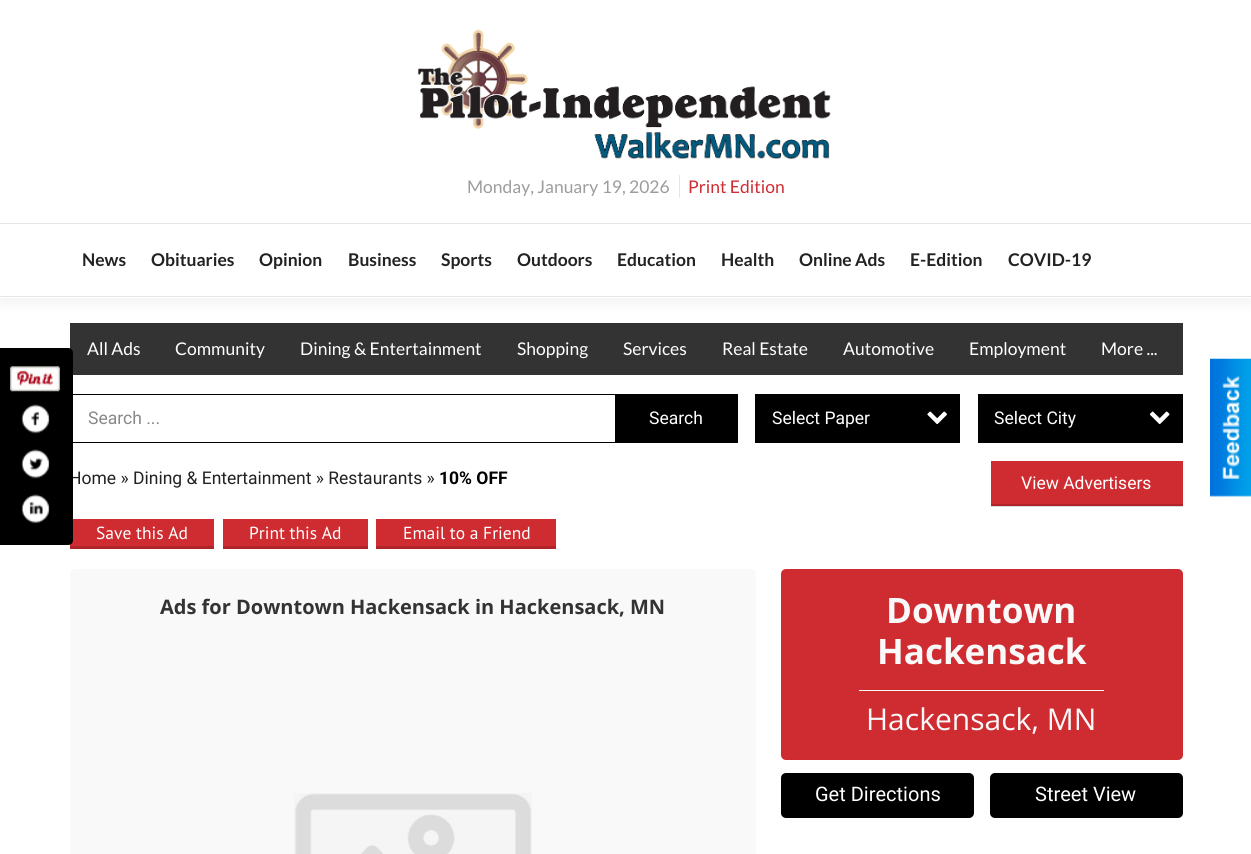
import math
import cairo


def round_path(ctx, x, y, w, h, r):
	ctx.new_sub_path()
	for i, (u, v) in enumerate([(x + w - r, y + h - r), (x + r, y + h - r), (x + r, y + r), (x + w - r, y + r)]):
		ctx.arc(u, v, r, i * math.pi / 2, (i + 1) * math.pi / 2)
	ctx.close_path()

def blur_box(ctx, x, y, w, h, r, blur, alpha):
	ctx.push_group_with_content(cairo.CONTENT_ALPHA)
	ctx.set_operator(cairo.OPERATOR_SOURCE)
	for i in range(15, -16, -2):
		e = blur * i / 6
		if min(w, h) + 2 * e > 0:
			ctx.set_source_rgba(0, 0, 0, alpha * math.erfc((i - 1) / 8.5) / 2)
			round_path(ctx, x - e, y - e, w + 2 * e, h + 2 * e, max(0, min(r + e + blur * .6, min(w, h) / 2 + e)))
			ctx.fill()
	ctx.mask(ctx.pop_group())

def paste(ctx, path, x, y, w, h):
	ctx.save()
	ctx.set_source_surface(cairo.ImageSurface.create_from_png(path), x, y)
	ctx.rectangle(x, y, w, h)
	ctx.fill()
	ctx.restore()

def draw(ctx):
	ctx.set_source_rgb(1, 1, 1)
	ctx.paint()
	ctx.set_source_rgb(0.851, 0.851, 0.851)
	ctx.rectangle(991, 506, 192, 1)
	ctx.fill()
	ctx.save()
	ctx.set_fill_rule(cairo.FILL_RULE_EVEN_ODD)
	ctx.new_path()
	ctx.move_to(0, 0)
	ctx.line_to(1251, 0)
	ctx.line_to(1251, 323)
	ctx.line_to(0, 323)
	ctx.close_path()
	ctx.move_to(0, 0)
	ctx.line_to(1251, 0)
	ctx.line_to(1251, 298)
	ctx.line_to(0, 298)
	ctx.close_path()
	ctx.clip()
	ctx.set_source_rgb(0, 0, 0)
	blur_box(ctx, 0, 6, 1251, 298, 0, 6, 0.05)
	ctx.restore()
	ctx.set_source_rgb(0.902, 0.902, 0.902)
	ctx.rectangle(0, 296, 1251, 1)
	ctx.fill()
	paste(ctx, 'media/1.png', 418, 29, 413, 130)
	ctx.select_font_face('Lato')
	ctx.set_font_size(17.5)
	ctx.set_source_rgb(0.62, 0.612, 0.612)
	ctx.move_to(467, 193)
	ctx.show_text('Monday, January 19, 2026')
	ctx.set_source_rgb(0.902, 0.902, 0.902)
	ctx.rectangle(679, 175, 1, 23)
	ctx.fill()
	ctx.set_source_rgb(0.812, 0.173, 0.192)
	ctx.move_to(688, 193)
	ctx.show_text('Print Edition')
	ctx.set_source_rgb(0.902, 0.902, 0.902)
	ctx.rectangle(0, 223, 1251, 1)
	ctx.fill()
	ctx.select_font_face('Lato', cairo.FONT_SLANT_NORMAL, cairo.FONT_WEIGHT_BOLD)
	ctx.set_source_rgb(0.133, 0.133, 0.133)
	for x, y, s in [
		(82, 266, 'News'),
		(151, 266, 'Obituaries'),
		(259, 266, 'Opinion'),
		(348, 266, 'Business'),
		(441, 266, 'Sports'),
		(517, 266, 'Outdoors'),
		(617, 266, 'Education'),
		(721, 266, 'Health'),
		(799, 266, 'Online Ads'),
		(910, 266, 'E-Edition'),
		(1008, 266, 'COVID-19'),
	]:
		ctx.move_to(x, y)
		ctx.show_text(s)
	ctx.set_source_rgb(0.2, 0.2, 0.2)
	ctx.rectangle(70, 323, 1113, 52)
	ctx.fill()
	ctx.rectangle(70.5, 394.5, 667, 48)
	ctx.set_source_rgb(0, 0, 0)
	ctx.set_line_width(1)
	ctx.stroke()
	ctx.select_font_face('Roboto')
	ctx.set_source_rgb(0.133, 0.133, 0.133)
	ctx.move_to(69, 484)
	ctx.show_text('Home » Dining & Entertainment » Restaurants »')
	ctx.set_source_rgb(0.812, 0.173, 0.192)
	ctx.rectangle(70, 519, 144, 27)
	ctx.fill()
	ctx.set_source_rgb(0, 0, 0)
	ctx.new_path()
	ctx.move_to(0, 348)
	ctx.line_to(68, 348)
	ctx.curve_to(71, 348, 73, 350, 73, 353)
	ctx.line_to(73, 540)
	ctx.curve_to(73, 543, 71, 545, 68, 545)
	ctx.line_to(0, 545)
	ctx.close_path()
	ctx.fill()
	paste(ctx, 'media/2.png', 10, 366, 50, 26)
	paste(ctx, 'media/3.png', 21, 404, 29, 30)
	paste(ctx, 'media/4.png', 21, 449, 29, 30)
	paste(ctx, 'media/5.png', 21, 494, 29, 30)
	ctx.select_font_face('Lato')
	ctx.set_source_rgb(1, 1, 1)
	for x, y, s in [
		(87, 355, 'All Ads'),
		(175, 355, 'Community'),
		(300, 355, 'Dining & Entertainment'),
		(517, 355, 'Shopping'),
		(623, 355, 'Services'),
		(722, 355, 'Real Estate'),
		(843, 355, 'Automotive'),
		(969, 355, 'Employment'),
		(1101, 355, 'More ...'),
	]:
		ctx.move_to(x, y)
		ctx.show_text(s)
	ctx.select_font_face('Roboto')
	ctx.set_source_rgb(0.533, 0.533, 0.533)
	ctx.move_to(88, 424)
	ctx.show_text('Search ...')
	ctx.set_source_rgb(0, 0, 0)
	ctx.rectangle(615, 395, 122, 47)
	ctx.fill()
	ctx.set_source_rgb(1, 1, 1)
	ctx.move_to(649, 424)
	ctx.show_text('Search')
	ctx.set_source_rgb(0, 0, 0)
	ctx.rectangle(755, 394, 205, 49)
	ctx.fill()
	ctx.set_source_rgb(1, 1, 1)
	ctx.move_to(772, 424)
	ctx.show_text('Select Paper')
	paste(ctx, 'media/6.png', 927, 411, 20, 14)
	ctx.set_source_rgb(0, 0, 0)
	ctx.rectangle(978, 394, 205, 49)
	ctx.fill()
	ctx.set_source_rgb(1, 1, 1)
	ctx.move_to(994, 424)
	ctx.show_text('Select City')
	paste(ctx, 'media/7.png', 1149, 411, 21, 14)
	ctx.select_font_face('Roboto', cairo.FONT_SLANT_NORMAL, cairo.FONT_WEIGHT_BOLD)
	ctx.set_source_rgb(0, 0, 0)
	ctx.move_to(439, 484)
	ctx.show_text('10% OFF')
	ctx.set_source_rgb(0.812, 0.173, 0.192)
	ctx.rectangle(991, 461, 192, 43)
	ctx.fill()
	ctx.set_source_rgb(0.69, 0.145, 0.165)
	ctx.rectangle(991, 504, 192, 2)
	ctx.fill()
	ctx.select_font_face('Roboto')
	ctx.set_source_rgb(1, 1, 1)
	ctx.move_to(1021, 489)
	ctx.show_text('View Advertisers')
	ctx.set_source_rgb(0.69, 0.145, 0.165)
	ctx.rectangle(70, 546, 144, 3)
	ctx.fill()
	ctx.select_font_face('PT Sans')
	ctx.set_source_rgb(1, 1, 1)
	ctx.move_to(96, 539)
	ctx.show_text('Save this Ad')
	ctx.set_source_rgb(0.812, 0.173, 0.192)
	ctx.rectangle(223, 519, 145, 27)
	ctx.fill()
	ctx.set_source_rgb(0.69, 0.145, 0.165)
	ctx.rectangle(223, 546, 145, 3)
	ctx.fill()
	ctx.set_source_rgb(1, 1, 1)
	ctx.move_to(249, 539)
	ctx.show_text('Print this Ad')
	ctx.set_source_rgb(0.812, 0.173, 0.192)
	ctx.rectangle(376, 519, 180, 27)
	ctx.fill()
	ctx.set_source_rgb(0.69, 0.145, 0.165)
	ctx.rectangle(376, 546, 180, 3)
	ctx.fill()
	ctx.set_source_rgb(1, 1, 1)
	ctx.move_to(403, 539)
	ctx.show_text('Email to a Friend')
	ctx.set_source_rgb(0.976, 0.976, 0.976)
	round_path(ctx, 70, 569, 686, 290, 5)
	ctx.fill()
	ctx.select_font_face('Open Sans', cairo.FONT_SLANT_NORMAL, cairo.FONT_WEIGHT_BOLD)
	ctx.set_font_size(20)
	ctx.set_source_rgb(0.2, 0.2, 0.2)
	ctx.move_to(160, 614)
	ctx.show_text('Ads for Downtown Hackensack in Hackensack, MN')
	paste(ctx, 'media/8.png', 294, 793, 238, 61)
	ctx.set_source_rgb(0.812, 0.173, 0.192)
	round_path(ctx, 781, 569, 402, 191, 5)
	ctx.fill()
	ctx.set_font_size(35)
	ctx.set_source_rgb(0.976, 0.976, 0.976)
	ctx.move_to(886, 623)
	ctx.show_text('Downtown')
	ctx.move_to(877, 664)
	ctx.show_text('Hackensack')
	ctx.rectangle(859, 690, 245, 1)
	ctx.fill()
	ctx.select_font_face('Open Sans')
	ctx.set_font_size(30)
	ctx.move_to(866, 730)
	ctx.show_text('Hackensack, MN')
	ctx.set_source_rgb(0, 0, 0)
	round_path(ctx, 781, 773, 193, 45, 5)
	ctx.fill()
	ctx.select_font_face('Roboto')
	ctx.set_font_size(20)
	ctx.set_source_rgb(1, 1, 1)
	ctx.move_to(815, 801)
	ctx.show_text('Get Directions')
	ctx.set_source_rgb(0, 0, 0)
	round_path(ctx, 990, 773, 193, 45, 5)
	ctx.fill()
	ctx.set_source_rgb(1, 1, 1)
	ctx.move_to(1035, 801)
	ctx.show_text('Street View')
	paste(ctx, 'media/9.png', 1210, 358, 41, 139)


surface = cairo.ImageSurface(cairo.FORMAT_RGB24, 1251, 854)
ctx = cairo.Context(surface)
options = cairo.FontOptions()
options.set_hint_metrics(cairo.HINT_METRICS_OFF)
options.set_hint_style(cairo.HINT_STYLE_NONE)
ctx.set_font_options(options)
ctx.set_miter_limit(4)
draw(ctx)
surface.write_to_png('image.png')
